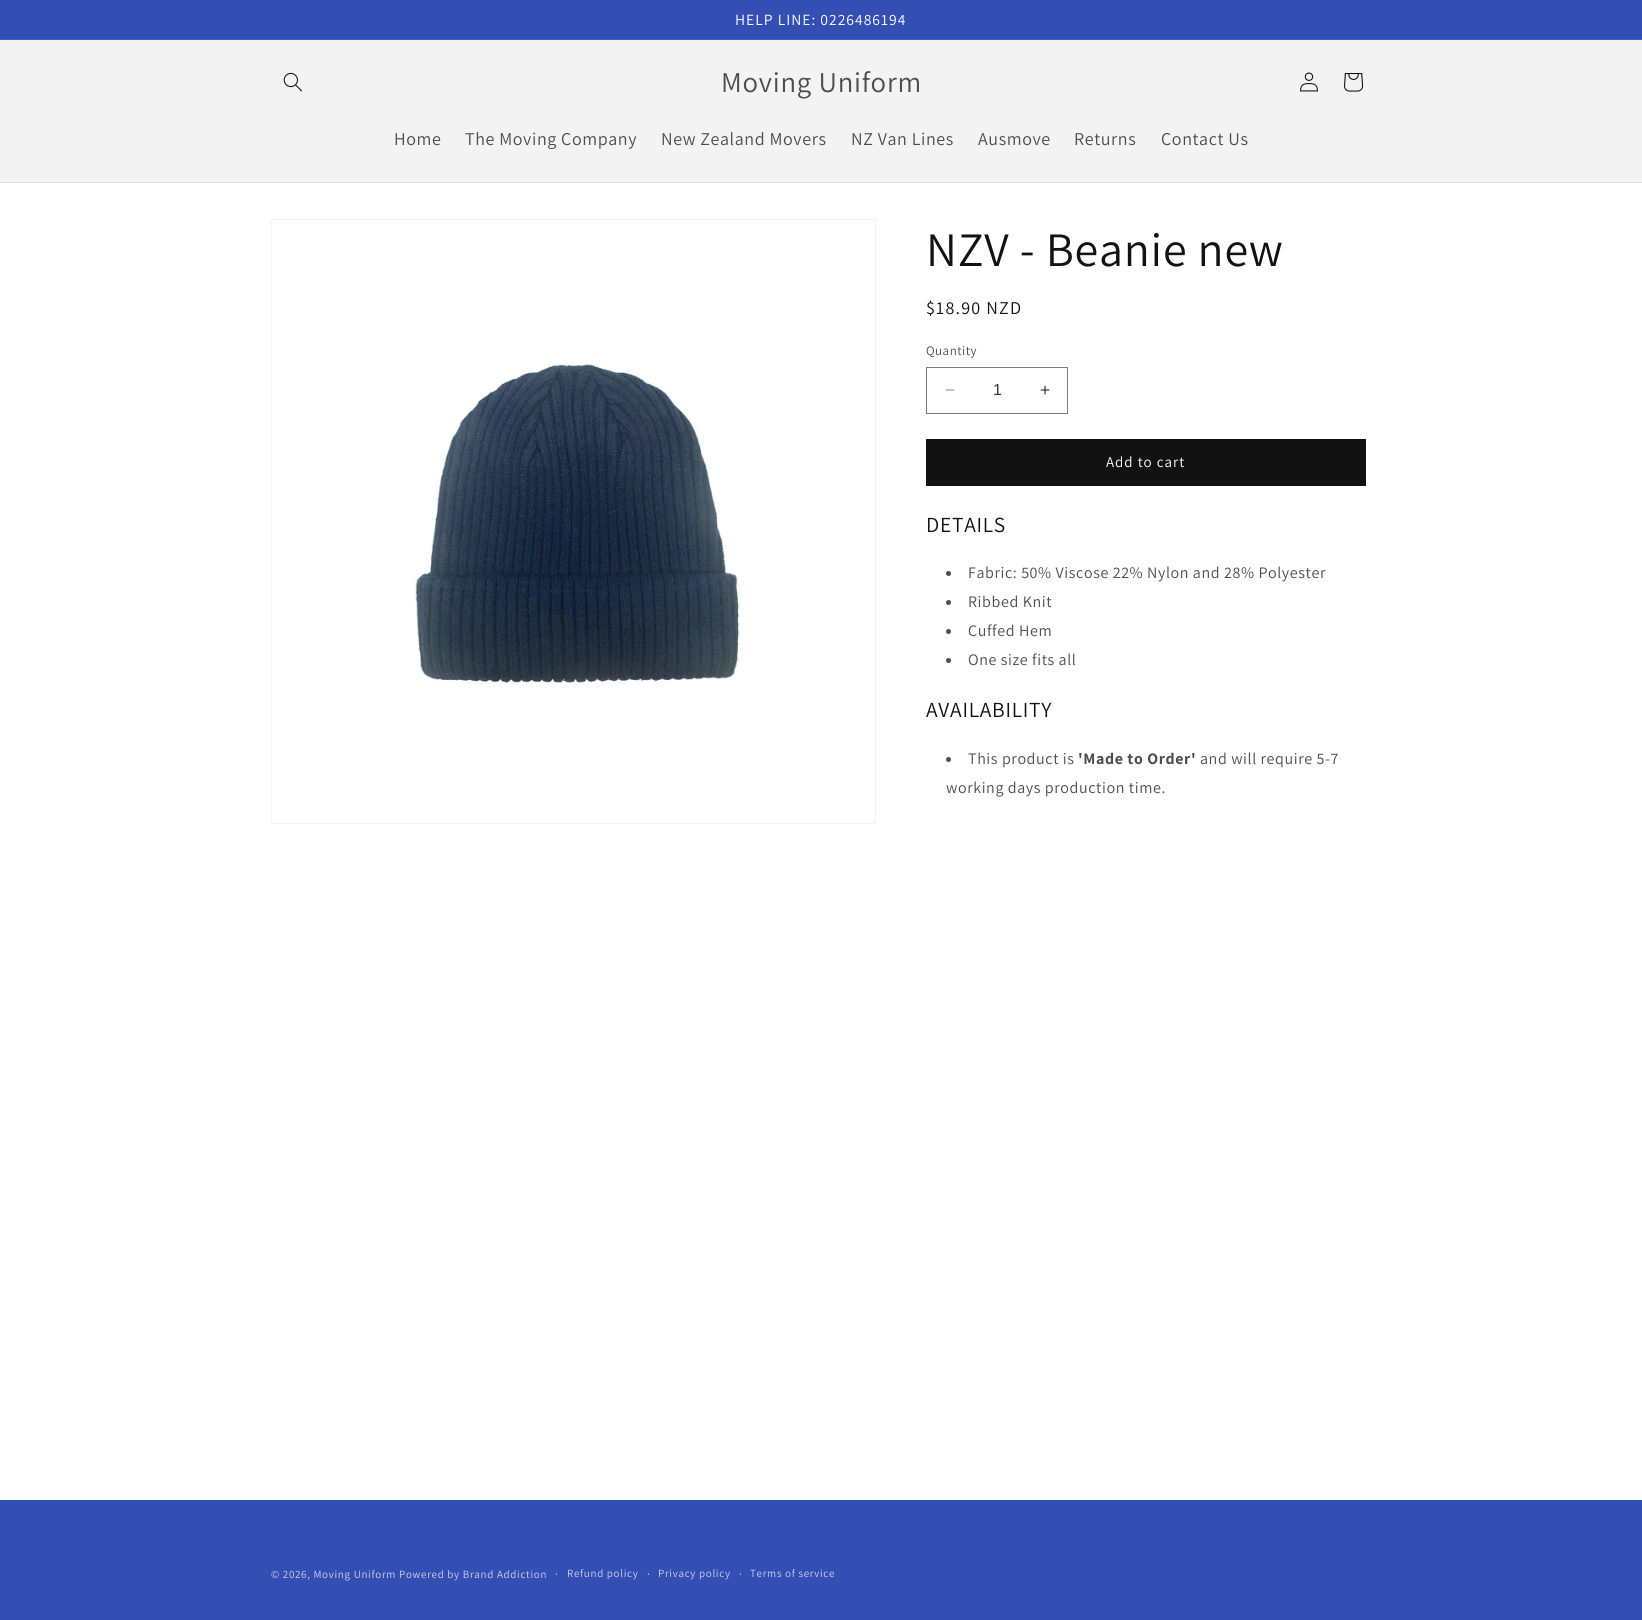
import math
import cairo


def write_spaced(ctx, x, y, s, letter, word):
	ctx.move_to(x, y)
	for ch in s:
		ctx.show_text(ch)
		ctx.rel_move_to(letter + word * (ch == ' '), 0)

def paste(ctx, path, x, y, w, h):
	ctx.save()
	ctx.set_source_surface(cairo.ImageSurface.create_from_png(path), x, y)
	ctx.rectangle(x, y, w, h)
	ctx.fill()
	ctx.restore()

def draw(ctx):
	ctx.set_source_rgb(1, 1, 1)
	ctx.paint()
	ctx.set_source_rgb(0.2, 0.31, 0.706)
	ctx.rectangle(0, 0, 1642, 39)
	ctx.fill()
	ctx.set_source_rgb(0.263, 0.365, 0.729)
	ctx.rectangle(0, 39, 1642, 1)
	ctx.fill()
	ctx.select_font_face('Assistant')
	ctx.set_font_size(15.6)
	ctx.set_source_rgb(1, 1, 1)
	write_spaced(ctx, 735, 25, 'HELP LINE: 0226486194', 1, 0)
	ctx.set_source_rgb(0.953, 0.953, 0.953)
	ctx.rectangle(0, 40, 1642, 142)
	ctx.fill()
	ctx.set_source_rgb(0.882, 0.882, 0.882)
	ctx.rectangle(0, 182, 1642, 1)
	ctx.fill()
	paste(ctx, 'media/1.png', 283, 72, 19, 20)
	ctx.set_font_size(28.75)
	ctx.set_source_rgb(0.302, 0.302, 0.302)
	write_spaced(ctx, 721, 92, 'Moving Uniform', 0.75, 0)
	paste(ctx, 'media/2.png', 1300, 72, 18, 20)
	paste(ctx, 'media/3.png', 1344, 73, 20, 19)
	ctx.set_font_size(18)
	for x, y, s in [
		(394, 145, 'Home'),
		(465, 145, 'The Moving Company'),
		(661, 145, 'New Zealand Movers'),
		(851, 145, 'NZ Van Lines'),
		(978, 145, 'Ausmove'),
		(1074, 145, 'Returns'),
		(1161, 145, 'Contact Us'),
	]:
		write_spaced(ctx, x, y, s, 0.6, 0)
	ctx.rectangle(271.5, 219.5, 604, 604)
	ctx.set_source_rgb(0.953, 0.953, 0.953)
	ctx.set_line_width(1)
	ctx.stroke()
	paste(ctx, 'media/4.png', 414, 362, 325, 325)
	ctx.set_font_size(48)
	ctx.set_source_rgb(0.071, 0.071, 0.071)
	write_spaced(ctx, 926, 266, 'NZV - Beanie new', 0.75, 0)
	ctx.set_font_size(18)
	write_spaced(ctx, 926, 314, '$18.90 NZD', 1.25, 0)
	ctx.set_font_size(13)
	ctx.set_source_rgb(0.302, 0.302, 0.302)
	write_spaced(ctx, 926, 355, 'Quantity', 0.5, 0)
	paste(ctx, 'media/5.png', 945, 389, 10, 2)
	paste(ctx, 'media/6.png', 1040, 385, 10, 10)
	ctx.rectangle(926.5, 367.5, 141, 46)
	ctx.set_source_rgb(0.49, 0.49, 0.49)
	ctx.stroke()
	ctx.select_font_face('Liberation Sans')
	ctx.set_font_size(16)
	ctx.set_source_rgb(0.212, 0.212, 0.212)
	ctx.move_to(993, 395)
	ctx.show_text('1')
	ctx.set_source_rgb(0.071, 0.071, 0.071)
	ctx.rectangle(926, 439, 440, 47)
	ctx.fill()
	ctx.select_font_face('Assistant')
	ctx.set_font_size(15)
	ctx.set_source_rgb(1, 1, 1)
	write_spaced(ctx, 1106, 467, 'Add to cart', 1, 0)
	ctx.set_font_size(21.5)
	ctx.set_source_rgb(0.071, 0.071, 0.071)
	write_spaced(ctx, 926, 532, 'DETAILS', 0.75, 0)
	ctx.set_source_rgb(0.302, 0.302, 0.302)
	ctx.new_path()
	ctx.arc(948.5, 573.5, 2.5, 0, 2 * math.pi)
	ctx.fill()
	ctx.set_font_size(16)
	write_spaced(ctx, 968, 578, 'Fabric: 50% Viscose 22% Nylon and 28% Polyester', 0.6, 0)
	ctx.new_path()
	ctx.arc(948.5, 602.5, 2.5, 0, 2 * math.pi)
	ctx.fill()
	write_spaced(ctx, 968, 607, 'Ribbed Knit', 0.6, 0)
	ctx.new_path()
	ctx.arc(948.5, 631.5, 2.5, 0, 2 * math.pi)
	ctx.fill()
	write_spaced(ctx, 968, 636, 'Cuffed Hem', 0.6, 0)
	ctx.new_path()
	ctx.arc(948.5, 660.5, 2.5, 0, 2 * math.pi)
	ctx.fill()
	write_spaced(ctx, 968, 665, 'One size fits all', 0.6, 0)
	ctx.set_font_size(21.5)
	ctx.set_source_rgb(0.071, 0.071, 0.071)
	write_spaced(ctx, 926, 717, 'AVAILABILITY', 0.75, 0)
	ctx.set_source_rgb(0.302, 0.302, 0.302)
	ctx.new_path()
	ctx.arc(948.5, 759.5, 2.5, 0, 2 * math.pi)
	ctx.fill()
	ctx.set_font_size(16)
	write_spaced(ctx, 968, 764, 'This product is', 0.6, 0)
	ctx.select_font_face('Assistant', cairo.FONT_SLANT_NORMAL, cairo.FONT_WEIGHT_BOLD)
	write_spaced(ctx, 1078, 764, '\'Made to Order\'', 0.6, 0)
	ctx.select_font_face('Assistant')
	write_spaced(ctx, 1200, 764, 'and will require 5-7', 0.6, 0)
	write_spaced(ctx, 946, 793, 'working days production time.', 0.6, 0)
	ctx.set_source_rgb(0.2, 0.31, 0.706)
	ctx.rectangle(0, 1500, 1642, 120)
	ctx.fill()
	ctx.set_font_size(11)
	ctx.set_source_rgb(0.8, 0.827, 0.925)
	write_spaced(ctx, 271, 1578, '© 2026, Moving Uniform Powered by Brand Addiction', 0.7, 0)
	ctx.set_font_size(12)
	write_spaced(ctx, 555, 1578, '·', 0.7, 0)
	ctx.set_font_size(11)
	write_spaced(ctx, 567, 1577, 'Refund policy', 0.7, 0)
	ctx.set_font_size(12)
	write_spaced(ctx, 647, 1578, '·', 0.7, 0)
	ctx.set_font_size(11)
	write_spaced(ctx, 658, 1577, 'Privacy policy', 0.7, 0)
	ctx.set_font_size(12)
	write_spaced(ctx, 739, 1578, '·', 0.7, 0)
	ctx.set_font_size(11)
	write_spaced(ctx, 750, 1577, 'Terms of service', 0.7, 0)


surface = cairo.ImageSurface(cairo.FORMAT_RGB24, 1642, 1620)
ctx = cairo.Context(surface)
options = cairo.FontOptions()
options.set_hint_metrics(cairo.HINT_METRICS_OFF)
options.set_hint_style(cairo.HINT_STYLE_NONE)
ctx.set_font_options(options)
ctx.set_miter_limit(4)
draw(ctx)
surface.write_to_png('image.png')
